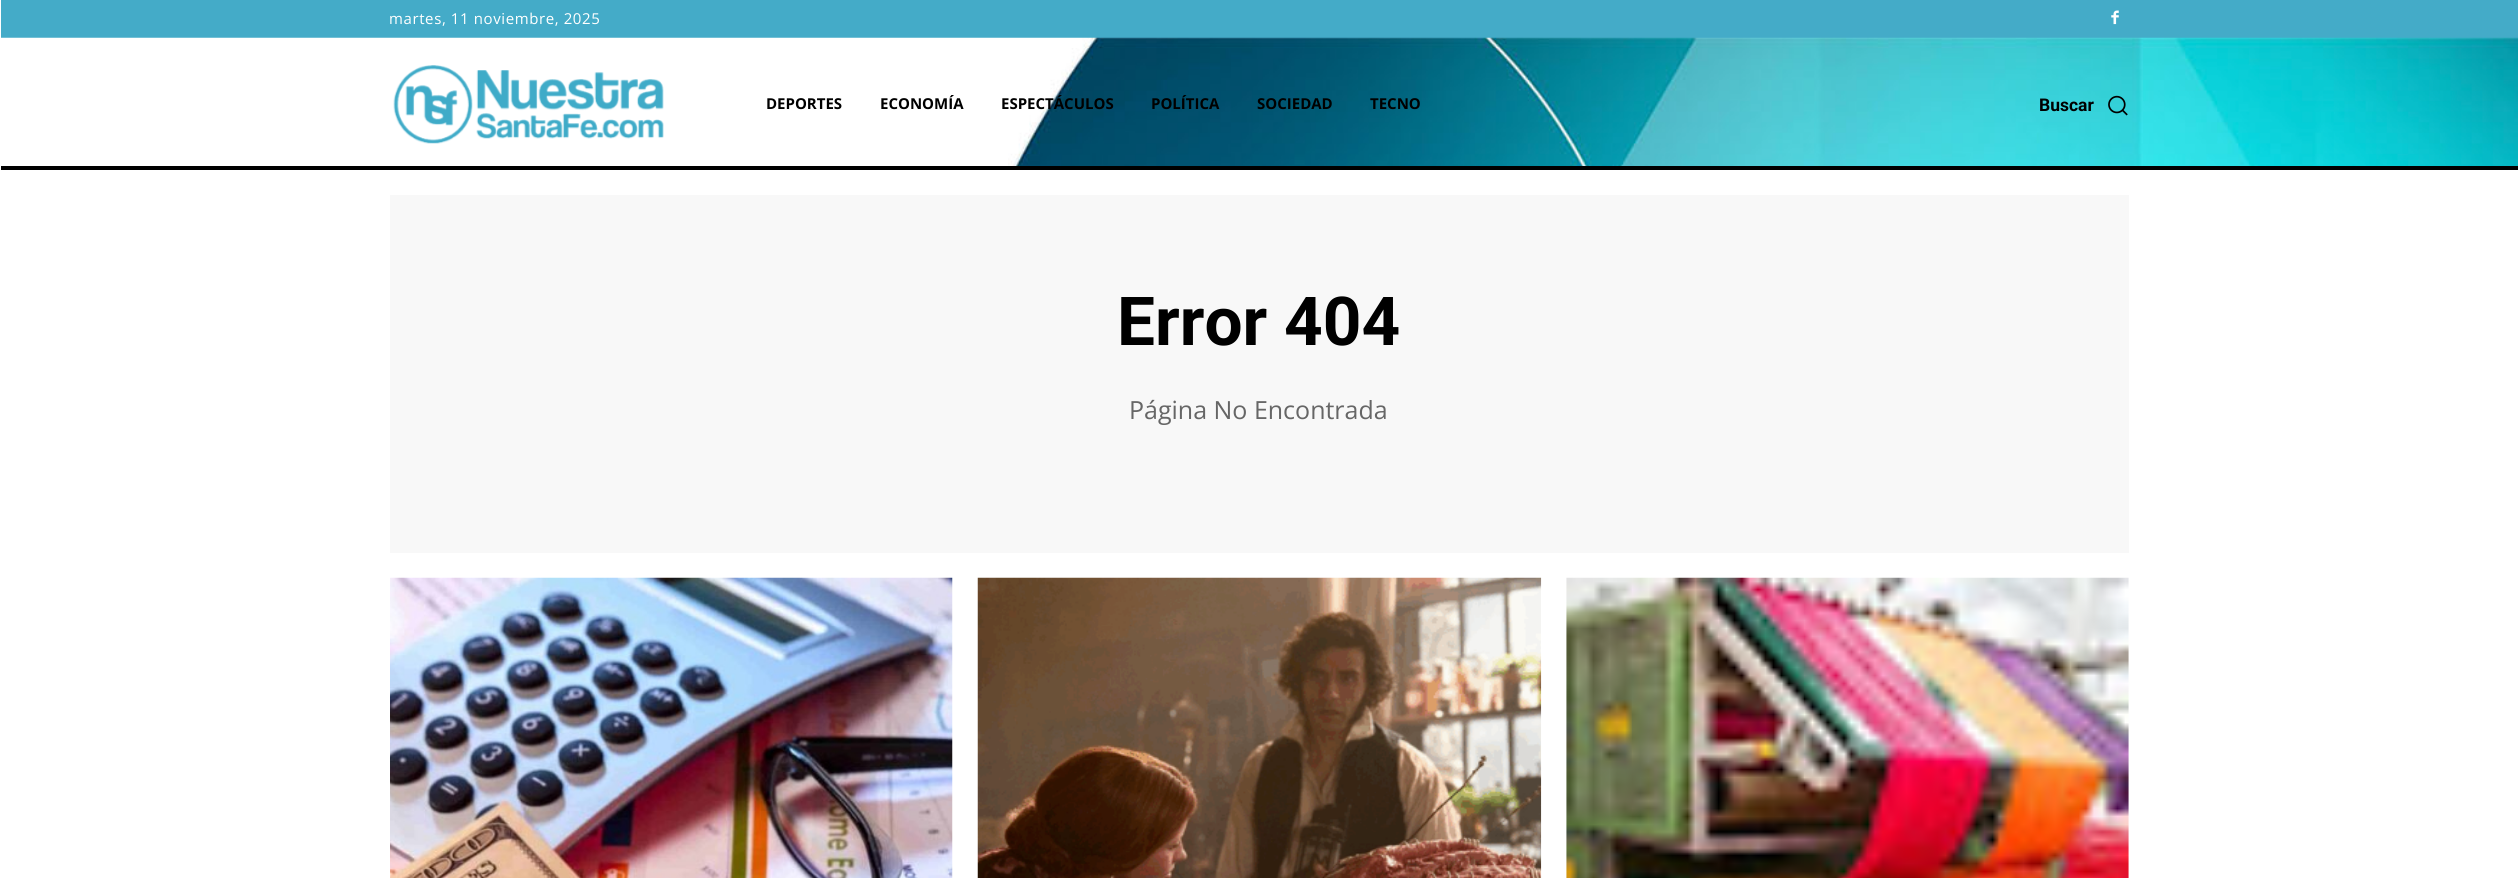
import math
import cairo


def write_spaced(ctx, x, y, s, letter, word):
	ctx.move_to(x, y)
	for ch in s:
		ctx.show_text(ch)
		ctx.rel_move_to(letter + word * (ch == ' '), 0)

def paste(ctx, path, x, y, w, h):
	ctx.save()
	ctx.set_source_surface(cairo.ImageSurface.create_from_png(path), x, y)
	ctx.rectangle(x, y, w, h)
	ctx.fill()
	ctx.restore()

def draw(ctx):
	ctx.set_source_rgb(1, 1, 1)
	ctx.paint()
	ctx.set_source_rgb(0.267, 0.671, 0.784)
	ctx.rectangle(1, 0, 2517, 38)
	ctx.fill()
	ctx.select_font_face('Open Sans')
	ctx.set_font_size(15)
	ctx.set_source_rgb(1, 1, 1)
	write_spaced(ctx, 389, 24, 'martes, 11 noviembre, 2025', 0.6, 0)
	paste(ctx, 'media/1.png', 2111, 10, 8, 15)
	paste(ctx, 'media/2.png', 1, 37, 2517, 129)
	ctx.set_source_rgb(0, 0, 0)
	ctx.rectangle(1, 166, 2517, 4)
	ctx.fill()
	paste(ctx, 'media/3.png', 393, 65, 271, 79)
	ctx.select_font_face('Open Sans', cairo.FONT_SLANT_NORMAL, cairo.FONT_WEIGHT_BOLD)
	for x, y, s in [
		(766, 109, 'DEPORTES'),
		(880, 109, 'ECONOMÍA'),
		(1001, 109, 'ESPECTÁCULOS'),
		(1151, 109, 'POLÍTICA'),
		(1257, 109, 'SOCIEDAD'),
		(1370, 109, 'TECNO'),
	]:
		ctx.move_to(x, y)
		ctx.show_text(s)
	ctx.select_font_face('Roboto', cairo.FONT_SLANT_NORMAL, cairo.FONT_WEIGHT_BOLD)
	ctx.set_font_size(17.5)
	ctx.move_to(2039, 111)
	ctx.show_text('Buscar')
	paste(ctx, 'media/4.png', 2108, 95, 20, 21)
	ctx.set_source_rgb(0.969, 0.969, 0.969)
	ctx.rectangle(390, 195, 1739, 358)
	ctx.fill()
	ctx.set_font_size(67.5)
	ctx.set_source_rgb(0, 0, 0)
	ctx.move_to(1117, 345)
	ctx.show_text('Error 404')
	ctx.select_font_face('Open Sans')
	ctx.set_font_size(25)
	ctx.set_source_rgb(0.4, 0.4, 0.4)
	ctx.move_to(1129, 419)
	ctx.show_text('Página No Encontrada')
	paste(ctx, 'media/5.png', 390, 577, 563, 301)
	paste(ctx, 'media/6.png', 977, 577, 565, 301)
	paste(ctx, 'media/7.png', 1566, 577, 563, 301)


surface = cairo.ImageSurface(cairo.FORMAT_RGB24, 2518, 878)
ctx = cairo.Context(surface)
options = cairo.FontOptions()
options.set_hint_metrics(cairo.HINT_METRICS_OFF)
options.set_hint_style(cairo.HINT_STYLE_NONE)
ctx.set_font_options(options)
ctx.set_miter_limit(4)
draw(ctx)
surface.write_to_png('image.png')
